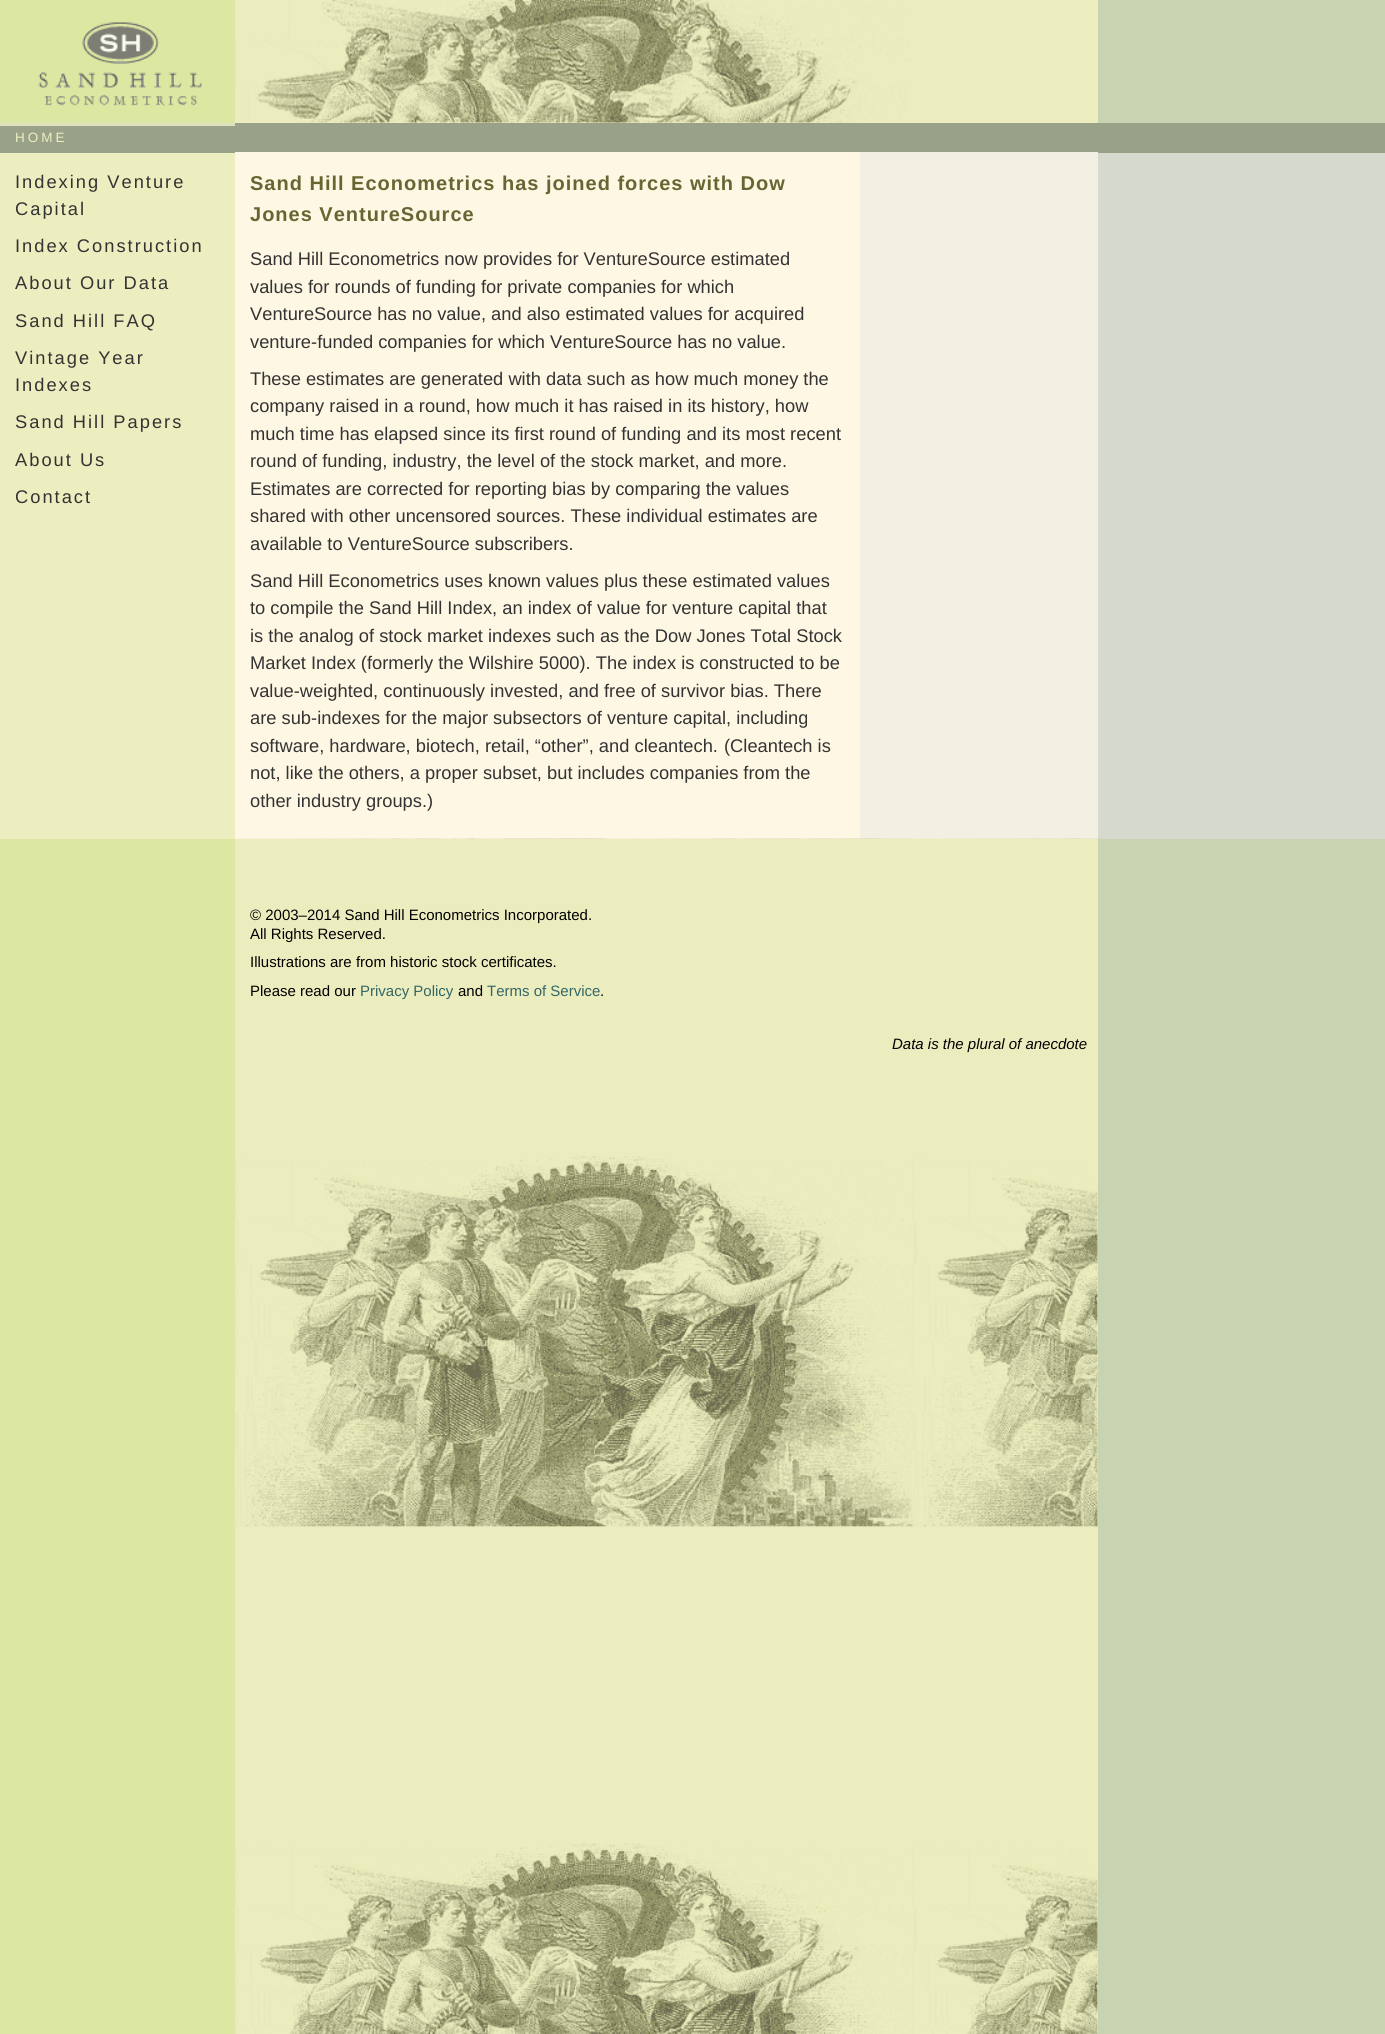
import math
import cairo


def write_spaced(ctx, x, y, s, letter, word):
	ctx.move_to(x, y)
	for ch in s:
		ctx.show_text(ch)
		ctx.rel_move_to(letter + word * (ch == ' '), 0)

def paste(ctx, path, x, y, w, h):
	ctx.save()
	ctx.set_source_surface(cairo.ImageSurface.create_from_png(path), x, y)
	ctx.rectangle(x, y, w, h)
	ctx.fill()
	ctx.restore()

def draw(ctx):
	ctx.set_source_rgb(0.863, 0.906, 0.631)
	ctx.paint()
	ctx.set_source_rgb(0.6, 0.631, 0.533)
	ctx.rectangle(0, 123, 1385, 30)
	ctx.fill()
	ctx.set_source_rgb(0.875, 0.89, 0.729)
	ctx.rectangle(0, 122, 235, 4)
	ctx.fill()
	paste(ctx, 'media/1.png', 0, 22, 235, 101)
	ctx.set_source_rgb(0.922, 0.933, 0.749)
	ctx.rectangle(235, 0, 863, 123)
	ctx.fill()
	paste(ctx, 'media/2.png', 235, 0, 676, 123)
	ctx.set_source_rgb(0.784, 0.827, 0.698)
	ctx.rectangle(1098, 0, 287, 123)
	ctx.fill()
	ctx.select_font_face('Liberation Sans')
	ctx.set_font_size(13.5)
	ctx.set_source_rgb(0.922, 0.933, 0.749)
	write_spaced(ctx, 15, 142, 'HOME', 3, 0)
	ctx.rectangle(0, 153, 235, 686)
	ctx.fill()
	ctx.set_font_size(18.3)
	ctx.set_source_rgb(0.2, 0.2, 0.2)
	for x, y, s in [
		(15, 188, 'Indexing Venture'),
		(15, 215, 'Capital'),
		(15, 252, 'Index Construction'),
		(15, 289, 'About Our Data'),
		(15, 327, 'Sand Hill FAQ'),
		(15, 364, 'Vintage Year'),
		(15, 391, 'Indexes'),
		(15, 428, 'Sand Hill Papers'),
		(15, 466, 'About Us'),
		(15, 503, 'Contact'),
	]:
		write_spaced(ctx, x, y, s, 2, 0)
	ctx.set_source_rgb(0.996, 0.965, 0.89)
	ctx.rectangle(235, 152, 625, 687)
	ctx.fill()
	ctx.select_font_face('Liberation Sans', cairo.FONT_SLANT_NORMAL, cairo.FONT_WEIGHT_BOLD)
	ctx.set_font_size(20)
	ctx.set_source_rgb(0.4, 0.4, 0.2)
	write_spaced(ctx, 250, 190, 'Sand Hill Econometrics has joined forces with Dow', 1, 0)
	write_spaced(ctx, 250, 221, 'Jones VentureSource', 1, 0)
	ctx.select_font_face('Liberation Sans')
	ctx.set_font_size(18.3)
	ctx.set_source_rgb(0.2, 0.2, 0.2)
	for x, y, s in [
		(250, 265, 'Sand Hill Econometrics now provides for VentureSource estimated'),
		(250, 293, 'values for rounds of funding for private companies for which'),
		(250, 320, 'VentureSource has no value, and also estimated values for acquired'),
		(250, 348, 'venture-funded companies for which VentureSource has no value.'),
		(250, 385, 'These estimates are generated with data such as how much money the'),
		(250, 412, 'company raised in a round, how much it has raised in its history, how'),
		(250, 440, 'much time has elapsed since its first round of funding and its most recent'),
		(250, 467, 'round of funding, industry, the level of the stock market, and more.'),
		(250, 495, 'Estimates are corrected for reporting bias by comparing the values'),
		(250, 522, 'shared with other uncensored sources. These individual estimates are'),
		(250, 550, 'available to VentureSource subscribers.'),
		(250, 587, 'Sand Hill Econometrics uses known values plus these estimated values'),
		(250, 614, 'to compile the Sand Hill Index, an index of value for venture capital that'),
		(250, 642, 'is the analog of stock market indexes such as the Dow Jones Total Stock'),
		(250, 669, 'Market Index (formerly the Wilshire 5000). The index is constructed to be'),
		(250, 697, 'value-weighted, continuously invested, and free of survivor bias. There'),
		(250, 724, 'are sub-indexes for the major subsectors of venture capital, including'),
		(250, 752, 'software, hardware, biotech, retail, “other”, and cleantech.'),
		(724, 752, '(Cleantech is'),
		(250, 779, 'not, like the others, a proper subset, but includes companies from the'),
		(250, 807, 'other industry groups.)'),
	]:
		ctx.move_to(x, y)
		ctx.show_text(s)
	ctx.set_source_rgb(0.953, 0.941, 0.89)
	ctx.rectangle(860, 152, 238, 687)
	ctx.fill()
	ctx.set_source_rgb(0.839, 0.855, 0.808)
	ctx.rectangle(1098, 153, 287, 686)
	ctx.fill()
	ctx.set_source_rgb(0.922, 0.933, 0.749)
	ctx.rectangle(1097, 839, 1, 1195)
	ctx.fill()
	paste(ctx, 'media/3.png', 235, 838, 863, 1196)
	ctx.set_font_size(15)
	ctx.set_source_rgb(0, 0, 0)
	for x, y, s in [
		(250, 920, '© 2003–2014 Sand Hill Econometrics Incorporated.'),
		(250, 939, 'All Rights Reserved.'),
		(250, 967, 'Illustrations are from historic stock certificates.'),
		(250, 996, 'Please read our'),
	]:
		ctx.move_to(x, y)
		ctx.show_text(s)
	ctx.set_source_rgb(0.2, 0.4, 0.4)
	ctx.move_to(360, 996)
	ctx.show_text('Privacy Policy')
	ctx.set_source_rgb(0, 0, 0)
	ctx.move_to(458, 996)
	ctx.show_text('and')
	ctx.set_source_rgb(0.2, 0.4, 0.4)
	ctx.move_to(487, 996)
	ctx.show_text('Terms of Service')
	ctx.set_source_rgb(0, 0, 0)
	ctx.move_to(600, 996)
	ctx.show_text('.')
	ctx.select_font_face('Liberation Sans', cairo.FONT_SLANT_ITALIC)
	ctx.move_to(892, 1049)
	ctx.show_text('Data is the plural of anecdote')
	ctx.set_source_rgb(0.784, 0.827, 0.698)
	ctx.rectangle(1098, 839, 287, 1195)
	ctx.fill()


surface = cairo.ImageSurface(cairo.FORMAT_RGB24, 1385, 2034)
ctx = cairo.Context(surface)
options = cairo.FontOptions()
options.set_hint_metrics(cairo.HINT_METRICS_OFF)
options.set_hint_style(cairo.HINT_STYLE_NONE)
ctx.set_font_options(options)
ctx.set_miter_limit(4)
draw(ctx)
surface.write_to_png('image.png')
